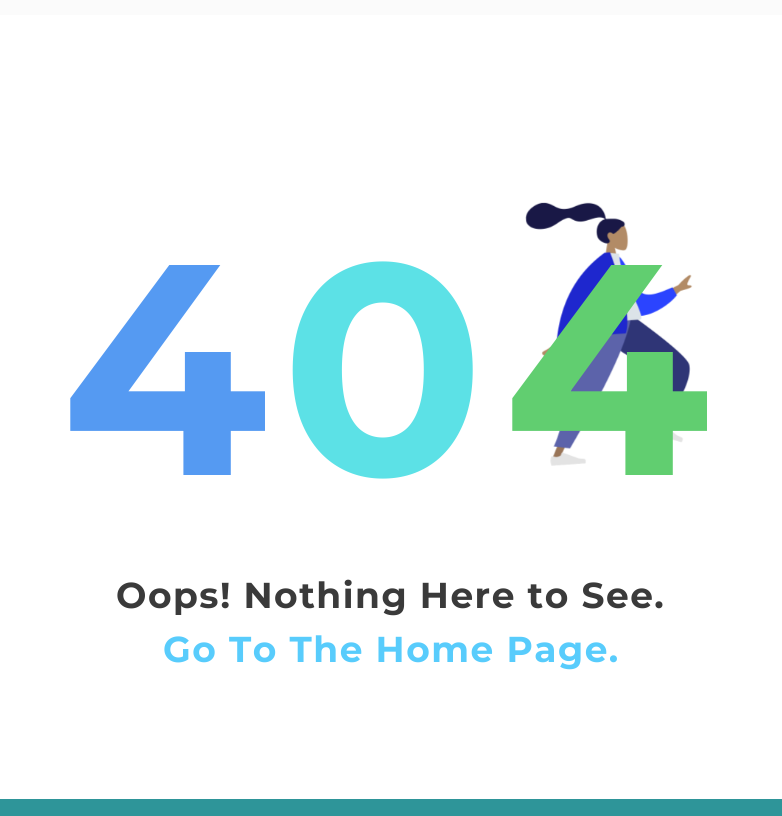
import math
import cairo


def write_spaced(ctx, x, y, s, letter, word):
	ctx.move_to(x, y)
	for ch in s:
		ctx.show_text(ch)
		ctx.rel_move_to(letter + word * (ch == ' '), 0)

def paste(ctx, path, x, y, w, h):
	ctx.save()
	ctx.set_source_surface(cairo.ImageSurface.create_from_png(path), x, y)
	ctx.rectangle(x, y, w, h)
	ctx.fill()
	ctx.restore()

def draw(ctx):
	ctx.set_source_rgb(0.984, 0.984, 0.984)
	ctx.paint()
	ctx.set_source_rgb(1, 1, 1)
	ctx.rectangle(0, 15, 782, 784)
	ctx.fill()
	paste(ctx, 'media/1.png', 525, 202, 168, 264)
	ctx.select_font_face('Montserrat', cairo.FONT_SLANT_NORMAL, cairo.FONT_WEIGHT_BOLD)
	ctx.set_font_size(300)
	ctx.set_source_rgb(0.333, 0.604, 0.949)
	write_spaced(ctx, 61, 475, '4', 1.5, 0)
	ctx.set_source_rgb(0.361, 0.882, 0.902)
	write_spaced(ctx, 281, 475, '0', 1.5, 0)
	ctx.set_source_rgb(0.38, 0.808, 0.439)
	write_spaced(ctx, 503, 475, '4', 1.5, 0)
	ctx.set_font_size(36)
	ctx.set_source_rgb(0.227, 0.227, 0.227)
	write_spaced(ctx, 116, 608, 'Oops! Nothing Here to See.', 1.5, 0)
	ctx.set_source_rgb(0.345, 0.8, 0.988)
	write_spaced(ctx, 163, 662, 'Go To The Home Page.', 1.5, 0)
	ctx.set_source_rgb(0.18, 0.584, 0.6)
	ctx.rectangle(0, 799, 782, 17)
	ctx.fill()


surface = cairo.ImageSurface(cairo.FORMAT_RGB24, 782, 816)
ctx = cairo.Context(surface)
options = cairo.FontOptions()
options.set_hint_metrics(cairo.HINT_METRICS_OFF)
options.set_hint_style(cairo.HINT_STYLE_NONE)
ctx.set_font_options(options)
ctx.set_miter_limit(4)
draw(ctx)
surface.write_to_png('image.png')
